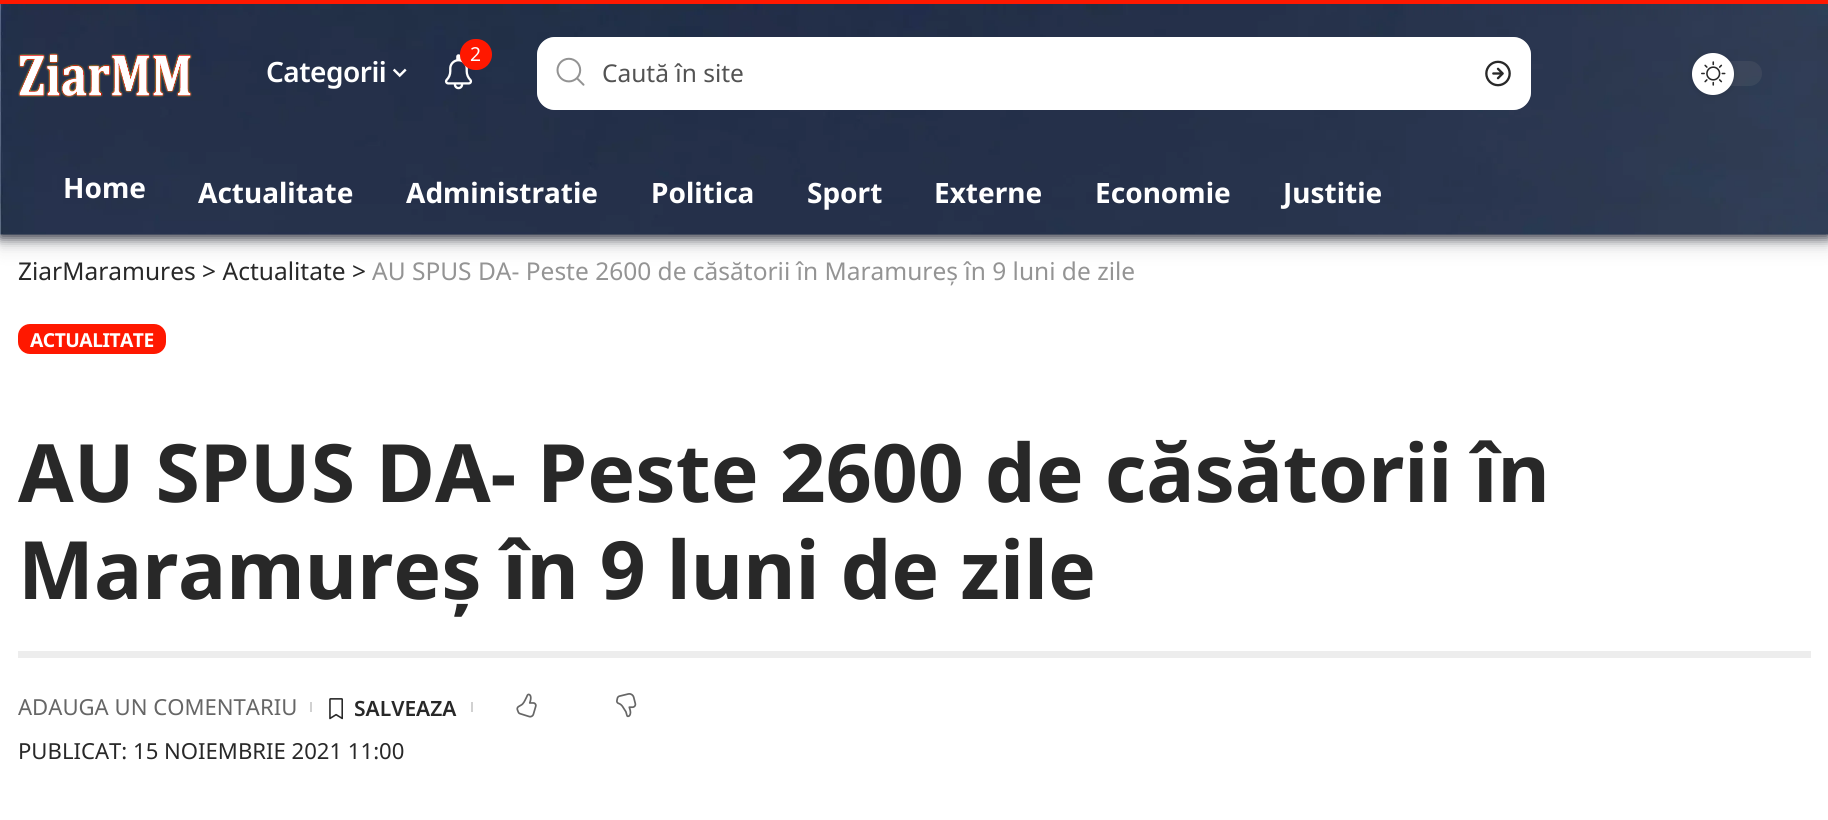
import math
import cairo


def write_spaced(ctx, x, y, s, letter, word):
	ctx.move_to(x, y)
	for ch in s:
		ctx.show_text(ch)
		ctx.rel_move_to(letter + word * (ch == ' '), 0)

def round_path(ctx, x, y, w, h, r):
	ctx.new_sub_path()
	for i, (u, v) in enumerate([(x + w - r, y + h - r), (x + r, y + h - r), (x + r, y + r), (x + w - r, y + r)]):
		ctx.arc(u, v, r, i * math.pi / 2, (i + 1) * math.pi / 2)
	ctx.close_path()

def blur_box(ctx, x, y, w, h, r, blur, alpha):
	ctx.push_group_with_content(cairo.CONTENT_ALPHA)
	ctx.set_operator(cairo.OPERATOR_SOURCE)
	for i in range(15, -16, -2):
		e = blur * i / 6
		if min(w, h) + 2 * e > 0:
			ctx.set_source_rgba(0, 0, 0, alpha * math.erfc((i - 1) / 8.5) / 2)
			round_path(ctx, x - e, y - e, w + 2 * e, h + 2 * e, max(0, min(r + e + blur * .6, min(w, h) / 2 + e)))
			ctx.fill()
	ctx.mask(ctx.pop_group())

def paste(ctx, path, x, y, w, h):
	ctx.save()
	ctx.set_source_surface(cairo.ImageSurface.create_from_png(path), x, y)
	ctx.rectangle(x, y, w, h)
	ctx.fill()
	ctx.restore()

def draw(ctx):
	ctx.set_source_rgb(1, 1, 1)
	ctx.paint()
	ctx.set_source_rgb(0.071, 0.09, 0.153)
	blur_box(ctx, 0, 4, 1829, 234, 0, 6, 0.86)
	paste(ctx, 'media/1.png', 0, 4, 1828, 231)
	ctx.set_source_rgb(1, 0.094, 0)
	ctx.rectangle(0, 0, 1828, 4)
	ctx.fill()
	paste(ctx, 'media/2.png', 18, 53, 174, 45)
	ctx.select_font_face('Noto Sans SemiBold')
	ctx.set_font_size(28)
	ctx.set_source_rgb(1, 1, 1)
	write_spaced(ctx, 266, 82, 'Categorii', -0.5, 0)
	paste(ctx, 'media/3.png', 392, 68, 15, 10)
	paste(ctx, 'media/4.png', 444, 54, 29, 36)
	ctx.set_source_rgb(1, 0.094, 0)
	round_path(ctx, 460, 39, 32, 31, 15.5)
	ctx.fill()
	ctx.select_font_face('Noto Sans')
	ctx.set_font_size(19.25)
	ctx.set_source_rgb(1, 1, 1)
	ctx.move_to(470, 61)
	ctx.show_text('2')
	round_path(ctx, 537, 37, 994, 73, 18)
	ctx.fill()
	round_path(ctx, 538, 38, 992, 71, 17)
	ctx.set_source_rgba(1, 1, 1, 0.49)
	ctx.stroke()
	paste(ctx, 'media/5.png', 556, 57, 29, 29)
	ctx.set_font_size(24.5)
	ctx.set_source_rgb(0.325, 0.325, 0.325)
	ctx.move_to(602, 82)
	ctx.show_text('Caută în site')
	paste(ctx, 'media/6.png', 1485, 60, 26, 27)
	ctx.set_source_rgba(0.533, 0.533, 0.533, 0.15)
	round_path(ctx, 1692, 61, 70, 25, 12.5)
	ctx.fill()
	ctx.set_source_rgb(0, 0, 0)
	blur_box(ctx, 1692, 54, 42, 42, 21, 3.5, 0.12)
	ctx.set_source_rgb(1, 1, 1)
	ctx.arc(1713, 74, 21, 0, 2 * math.pi)
	ctx.fill()
	paste(ctx, 'media/7.png', 1701, 61, 25, 25)
	ctx.save()
	ctx.set_fill_rule(cairo.FILL_RULE_EVEN_ODD)
	ctx.new_path()
	ctx.move_to(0, 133)
	ctx.line_to(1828, 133)
	ctx.line_to(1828, 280)
	ctx.line_to(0, 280)
	ctx.close_path()
	ctx.move_to(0, 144)
	ctx.line_to(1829, 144)
	ctx.line_to(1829, 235)
	ctx.line_to(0, 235)
	ctx.close_path()
	ctx.clip()
	ctx.set_source_rgb(0, 0, 0)
	blur_box(ctx, 0, 161, 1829, 91, 0, 9, 0.07)
	ctx.restore()
	ctx.select_font_face('Noto Sans', cairo.FONT_SLANT_NORMAL, cairo.FONT_WEIGHT_BOLD)
	ctx.set_font_size(28)
	for x, y, s in [
		(63, 198, 'Home'),
		(198, 203, 'Actualitate'),
		(406, 203, 'Administratie'),
		(651, 203, 'Politica'),
		(807, 203, 'Sport'),
		(934, 203, 'Externe'),
		(1095, 203, 'Economie'),
		(1283, 203, 'Justitie'),
	]:
		ctx.move_to(x, y)
		ctx.show_text(s)
	ctx.select_font_face('Noto Sans')
	ctx.set_font_size(24.5)
	ctx.set_source_rgb(0.157, 0.157, 0.157)
	ctx.move_to(18, 280)
	ctx.show_text('ZiarMaramures > Actualitate >')
	ctx.set_source_rgb(0.58, 0.58, 0.58)
	ctx.move_to(372, 280)
	ctx.show_text('AU SPUS DA- Peste 2600 de căsătorii în Maramureș în 9 luni de zile')
	ctx.set_source_rgb(1, 0.094, 0)
	round_path(ctx, 18, 324, 148, 30, 12)
	ctx.fill()
	ctx.select_font_face('Noto Sans', cairo.FONT_SLANT_NORMAL, cairo.FONT_WEIGHT_BOLD)
	ctx.set_font_size(19.25)
	ctx.set_source_rgb(1, 1, 1)
	write_spaced(ctx, 30, 347, 'ACTUALITATE', -0.5, 0)
	ctx.set_font_size(80.5)
	ctx.set_source_rgb(0.157, 0.157, 0.157)
	ctx.move_to(18, 502)
	ctx.show_text('AU SPUS DA- Peste 2600 de căsătorii în')
	ctx.move_to(18, 599)
	ctx.show_text('Maramureș în 9 luni de zile')
	ctx.set_source_rgb(0.929, 0.929, 0.929)
	ctx.rectangle(18, 651, 1793, 7)
	ctx.fill()
	ctx.select_font_face('Noto Sans')
	ctx.set_font_size(22.1)
	ctx.set_source_rgb(0.4, 0.4, 0.4)
	ctx.move_to(18, 715)
	ctx.show_text('ADAUGA UN COMENTARIU')
	ctx.set_source_rgb(0.82, 0.82, 0.82)
	ctx.rectangle(310, 702, 2, 10)
	ctx.fill()
	paste(ctx, 'media/8.png', 329, 698, 14, 22)
	ctx.select_font_face('Noto Sans SemiBold')
	ctx.set_font_size(21)
	ctx.set_source_rgb(0.157, 0.157, 0.157)
	ctx.move_to(354, 716)
	ctx.show_text('SALVEAZA')
	ctx.set_source_rgb(0.82, 0.82, 0.82)
	ctx.rectangle(471, 702, 2, 10)
	ctx.fill()
	paste(ctx, 'media/9.png', 516, 693, 21, 25)
	paste(ctx, 'media/10.png', 616, 693, 21, 25)
	ctx.select_font_face('Noto Sans')
	ctx.set_font_size(22.1)
	ctx.set_source_rgb(0.157, 0.157, 0.157)
	ctx.move_to(18, 759)
	ctx.show_text('PUBLICAT: 15 NOIEMBRIE 2021 11:00')


surface = cairo.ImageSurface(cairo.FORMAT_RGB24, 1828, 820)
ctx = cairo.Context(surface)
options = cairo.FontOptions()
options.set_hint_metrics(cairo.HINT_METRICS_OFF)
options.set_hint_style(cairo.HINT_STYLE_NONE)
ctx.set_font_options(options)
ctx.set_miter_limit(4)
draw(ctx)
surface.write_to_png('image.png')
